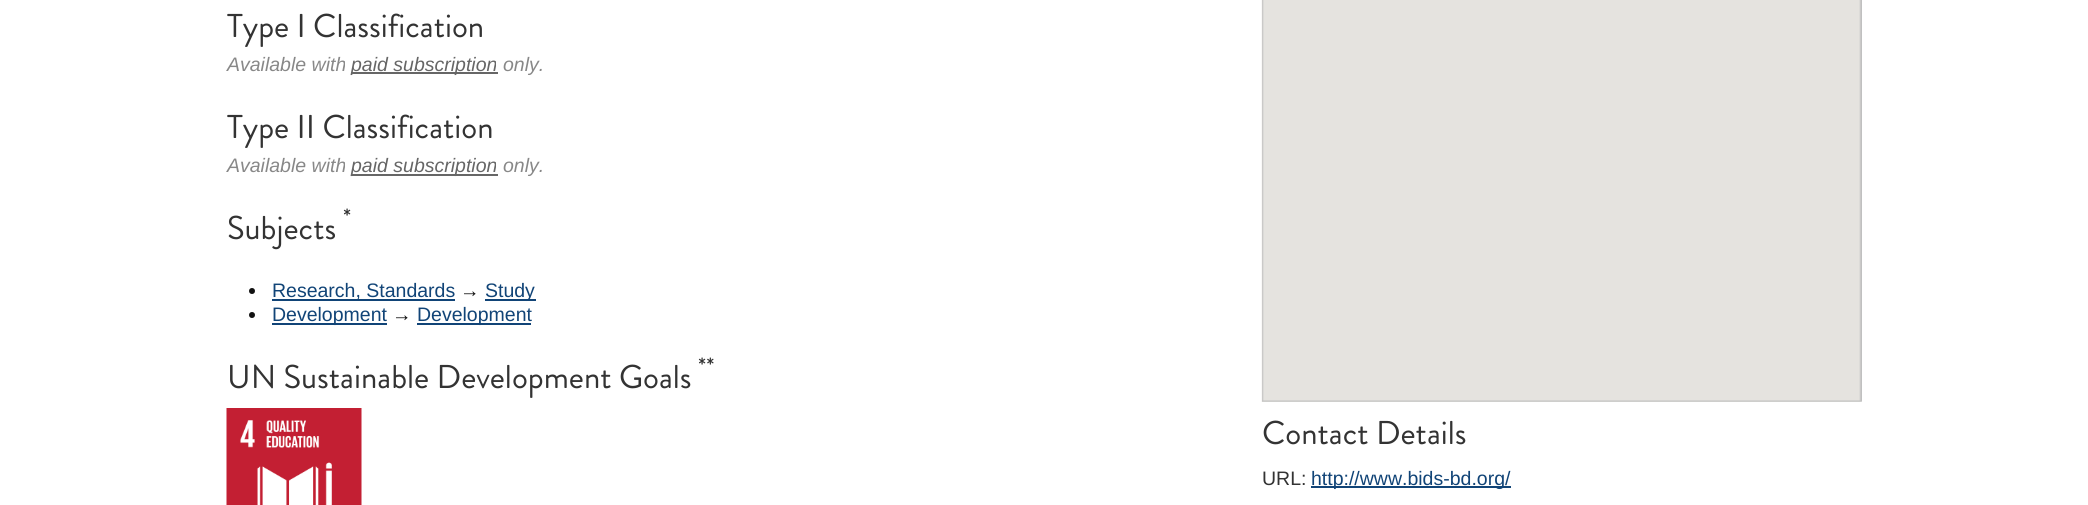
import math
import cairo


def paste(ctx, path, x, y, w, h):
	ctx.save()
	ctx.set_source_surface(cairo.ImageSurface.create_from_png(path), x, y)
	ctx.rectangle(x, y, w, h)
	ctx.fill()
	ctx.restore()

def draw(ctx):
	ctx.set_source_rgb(1, 1, 1)
	ctx.paint()
	ctx.select_font_face('Brandon Grotesque')
	ctx.set_font_size(33)
	ctx.set_source_rgb(0.2, 0.2, 0.2)
	ctx.move_to(227, 37)
	ctx.show_text('Type I Classification')
	ctx.select_font_face('Liberation Sans', cairo.FONT_SLANT_ITALIC)
	ctx.set_font_size(19.5)
	ctx.set_source_rgb(0.533, 0.533, 0.533)
	ctx.move_to(227, 71)
	ctx.show_text('Available with')
	ctx.set_source_rgb(0.4, 0.4, 0.4)
	ctx.rectangle(351, 72, 147, 2)
	ctx.fill()
	ctx.move_to(351, 71)
	ctx.show_text('paid subscription')
	ctx.set_source_rgb(0.533, 0.533, 0.533)
	ctx.move_to(503, 71)
	ctx.show_text('only.')
	ctx.select_font_face('Brandon Grotesque')
	ctx.set_font_size(33)
	ctx.set_source_rgb(0.2, 0.2, 0.2)
	ctx.move_to(227, 138)
	ctx.show_text('Type II Classification')
	ctx.select_font_face('Liberation Sans', cairo.FONT_SLANT_ITALIC)
	ctx.set_font_size(19.5)
	ctx.set_source_rgb(0.533, 0.533, 0.533)
	ctx.move_to(227, 172)
	ctx.show_text('Available with')
	ctx.set_source_rgb(0.4, 0.4, 0.4)
	ctx.rectangle(351, 174, 147, 2)
	ctx.fill()
	ctx.move_to(351, 172)
	ctx.show_text('paid subscription')
	ctx.set_source_rgb(0.533, 0.533, 0.533)
	ctx.move_to(503, 172)
	ctx.show_text('only.')
	ctx.select_font_face('Brandon Grotesque')
	ctx.set_font_size(25)
	ctx.set_source_rgb(0.2, 0.2, 0.2)
	ctx.move_to(343, 226)
	ctx.show_text('*')
	ctx.set_font_size(33)
	ctx.move_to(227, 239)
	ctx.show_text('Subjects')
	ctx.set_source_rgb(0.067, 0.067, 0.067)
	ctx.new_path()
	ctx.arc(252, 291, 3, 0, 2 * math.pi)
	ctx.fill()
	ctx.set_source_rgb(0.067, 0.267, 0.467)
	ctx.rectangle(272, 299, 183, 2)
	ctx.fill()
	ctx.select_font_face('Liberation Sans')
	ctx.set_font_size(19.5)
	ctx.move_to(272, 297)
	ctx.show_text('Research, Standards')
	ctx.set_source_rgb(0.067, 0.067, 0.067)
	ctx.move_to(460, 297)
	ctx.show_text('→')
	ctx.set_source_rgb(0.067, 0.267, 0.467)
	ctx.rectangle(485, 299, 51, 2)
	ctx.fill()
	ctx.move_to(485, 297)
	ctx.show_text('Study')
	ctx.set_source_rgb(0.067, 0.067, 0.067)
	ctx.new_path()
	ctx.arc(252, 315, 3, 0, 2 * math.pi)
	ctx.fill()
	ctx.set_source_rgb(0.067, 0.267, 0.467)
	ctx.rectangle(272, 323, 115, 2)
	ctx.fill()
	ctx.move_to(272, 321)
	ctx.show_text('Development')
	ctx.set_source_rgb(0.067, 0.067, 0.067)
	ctx.move_to(392, 321)
	ctx.show_text('→')
	ctx.set_source_rgb(0.067, 0.267, 0.467)
	ctx.rectangle(417, 323, 114, 2)
	ctx.fill()
	ctx.move_to(417, 321)
	ctx.show_text('Development')
	ctx.select_font_face('Brandon Grotesque')
	ctx.set_font_size(25)
	ctx.set_source_rgb(0.2, 0.2, 0.2)
	ctx.move_to(698, 375)
	ctx.show_text('**')
	ctx.set_font_size(33)
	ctx.move_to(227, 388)
	ctx.show_text('UN Sustainable Development Goals')
	paste(ctx, 'media/1.png', 226, 408, 136, 97)
	paste(ctx, 'media/2.png', 1261, 0, 601, 402)
	ctx.move_to(1262, 444)
	ctx.show_text('Contact Details')
	ctx.select_font_face('Liberation Sans')
	ctx.set_font_size(19.5)
	ctx.move_to(1262, 485)
	ctx.show_text('URL:')
	ctx.set_source_rgb(0.067, 0.267, 0.467)
	ctx.rectangle(1311, 486, 200, 2)
	ctx.fill()
	ctx.move_to(1311, 485)
	ctx.show_text('http://www.bids-bd.org/')


surface = cairo.ImageSurface(cairo.FORMAT_RGB24, 2088, 505)
ctx = cairo.Context(surface)
options = cairo.FontOptions()
options.set_hint_metrics(cairo.HINT_METRICS_OFF)
options.set_hint_style(cairo.HINT_STYLE_NONE)
ctx.set_font_options(options)
ctx.set_miter_limit(4)
draw(ctx)
surface.write_to_png('image.png')
